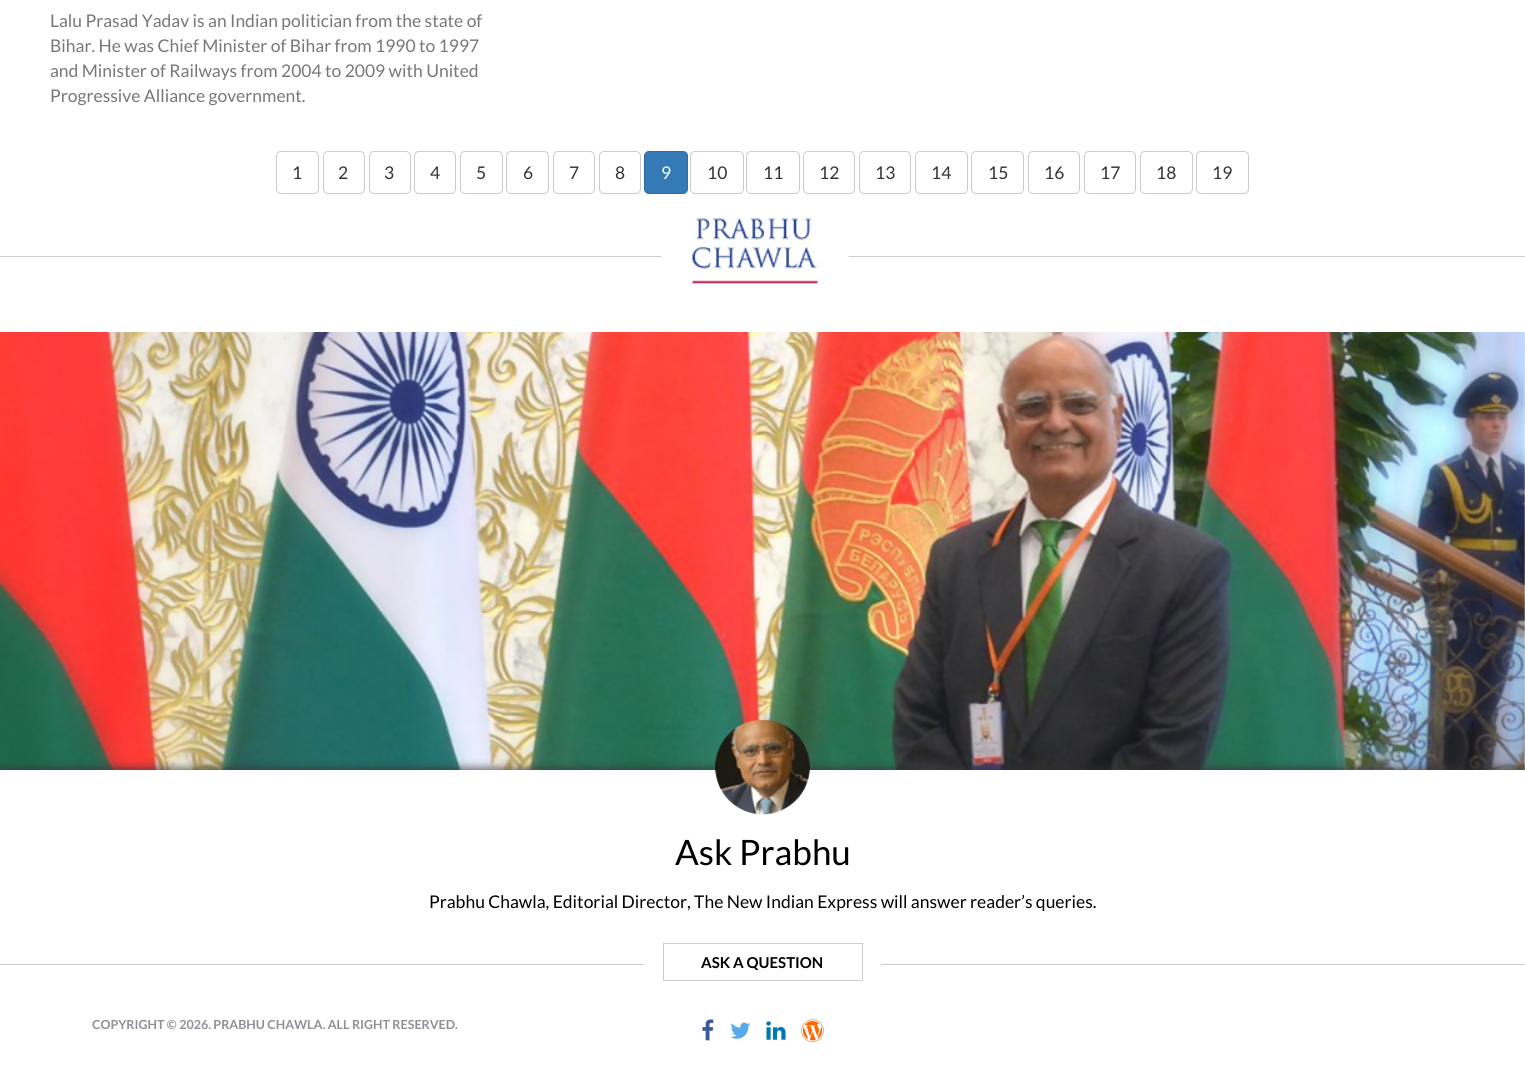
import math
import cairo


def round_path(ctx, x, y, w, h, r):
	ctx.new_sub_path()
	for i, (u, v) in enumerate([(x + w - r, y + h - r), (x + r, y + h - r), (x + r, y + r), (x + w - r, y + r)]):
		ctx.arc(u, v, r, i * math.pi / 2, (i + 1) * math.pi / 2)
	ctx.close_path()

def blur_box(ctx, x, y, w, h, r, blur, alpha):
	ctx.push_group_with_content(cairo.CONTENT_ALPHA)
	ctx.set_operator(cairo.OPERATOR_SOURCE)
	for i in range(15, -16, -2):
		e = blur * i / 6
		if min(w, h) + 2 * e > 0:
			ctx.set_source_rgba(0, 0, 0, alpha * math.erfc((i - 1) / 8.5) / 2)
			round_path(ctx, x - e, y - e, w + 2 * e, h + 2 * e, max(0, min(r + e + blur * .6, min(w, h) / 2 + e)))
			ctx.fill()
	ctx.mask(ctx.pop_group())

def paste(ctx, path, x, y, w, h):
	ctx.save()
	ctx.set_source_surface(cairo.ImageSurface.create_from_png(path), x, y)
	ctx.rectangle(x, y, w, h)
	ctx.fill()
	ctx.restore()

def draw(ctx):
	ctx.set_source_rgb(1, 1, 1)
	ctx.paint()
	ctx.select_font_face('Lato')
	ctx.set_font_size(17.5)
	ctx.set_source_rgb(0.467, 0.467, 0.467)
	for x, y, s in [
		(50, 27, 'Lalu Prasad Yadav is an Indian politician from the state of'),
		(50, 52, 'Bihar. He was Chief Minister of Bihar from 1990 to 1997'),
		(50, 77, 'and Minister of Railways from 2004 to 2009 with United'),
		(50, 102, 'Progressive Alliance government.'),
	]:
		ctx.move_to(x, y)
		ctx.show_text(s)
	round_path(ctx, 276.5, 151.5, 42, 42, 4.5)
	ctx.set_source_rgb(0.8, 0.8, 0.8)
	ctx.set_line_width(1)
	ctx.stroke()
	ctx.set_source_rgb(0.2, 0.2, 0.2)
	ctx.move_to(292, 179)
	ctx.show_text('1')
	round_path(ctx, 323.5, 151.5, 41, 42, 4.5)
	ctx.set_source_rgb(0.8, 0.8, 0.8)
	ctx.stroke()
	ctx.set_source_rgb(0.2, 0.2, 0.2)
	ctx.move_to(338, 179)
	ctx.show_text('2')
	round_path(ctx, 369.5, 151.5, 41, 42, 4.5)
	ctx.set_source_rgb(0.8, 0.8, 0.8)
	ctx.stroke()
	ctx.set_source_rgb(0.2, 0.2, 0.2)
	ctx.move_to(384, 179)
	ctx.show_text('3')
	round_path(ctx, 414.5, 151.5, 41, 42, 4.5)
	ctx.set_source_rgb(0.8, 0.8, 0.8)
	ctx.stroke()
	ctx.set_source_rgb(0.2, 0.2, 0.2)
	ctx.move_to(430, 179)
	ctx.show_text('4')
	round_path(ctx, 460.5, 151.5, 42, 42, 4.5)
	ctx.set_source_rgb(0.8, 0.8, 0.8)
	ctx.stroke()
	ctx.set_source_rgb(0.2, 0.2, 0.2)
	ctx.move_to(476, 179)
	ctx.show_text('5')
	round_path(ctx, 506.5, 151.5, 42, 42, 4.5)
	ctx.set_source_rgb(0.8, 0.8, 0.8)
	ctx.stroke()
	ctx.set_source_rgb(0.2, 0.2, 0.2)
	ctx.move_to(523, 179)
	ctx.show_text('6')
	round_path(ctx, 553.5, 151.5, 41, 42, 4.5)
	ctx.set_source_rgb(0.8, 0.8, 0.8)
	ctx.stroke()
	ctx.set_source_rgb(0.2, 0.2, 0.2)
	ctx.move_to(569, 179)
	ctx.show_text('7')
	round_path(ctx, 599.5, 151.5, 41, 42, 4.5)
	ctx.set_source_rgb(0.8, 0.8, 0.8)
	ctx.stroke()
	ctx.set_source_rgb(0.2, 0.2, 0.2)
	ctx.move_to(615, 179)
	ctx.show_text('8')
	ctx.set_source_rgb(0.2, 0.478, 0.718)
	round_path(ctx, 644.5, 151.5, 43, 42, 4.5)
	ctx.fill_preserve()
	ctx.set_source_rgb(0.18, 0.427, 0.643)
	ctx.stroke()
	ctx.set_source_rgb(1, 1, 1)
	ctx.move_to(661, 179)
	ctx.show_text('9')
	round_path(ctx, 690.5, 151.5, 53, 42, 4.5)
	ctx.set_source_rgb(0.8, 0.8, 0.8)
	ctx.stroke()
	ctx.set_source_rgb(0.2, 0.2, 0.2)
	ctx.move_to(707, 179)
	ctx.show_text('10')
	round_path(ctx, 746.5, 151.5, 53, 42, 4.5)
	ctx.set_source_rgb(0.8, 0.8, 0.8)
	ctx.stroke()
	ctx.set_source_rgb(0.2, 0.2, 0.2)
	ctx.move_to(763, 179)
	ctx.show_text('11')
	round_path(ctx, 803.5, 151.5, 51, 42, 4.5)
	ctx.set_source_rgb(0.8, 0.8, 0.8)
	ctx.stroke()
	ctx.set_source_rgb(0.2, 0.2, 0.2)
	ctx.move_to(819, 179)
	ctx.show_text('12')
	round_path(ctx, 859.5, 151.5, 51, 42, 4.5)
	ctx.set_source_rgb(0.8, 0.8, 0.8)
	ctx.stroke()
	ctx.set_source_rgb(0.2, 0.2, 0.2)
	ctx.move_to(875, 179)
	ctx.show_text('13')
	round_path(ctx, 915.5, 151.5, 52, 42, 4.5)
	ctx.set_source_rgb(0.8, 0.8, 0.8)
	ctx.stroke()
	ctx.set_source_rgb(0.2, 0.2, 0.2)
	ctx.move_to(931, 179)
	ctx.show_text('14')
	round_path(ctx, 971.5, 151.5, 52, 42, 4.5)
	ctx.set_source_rgb(0.8, 0.8, 0.8)
	ctx.stroke()
	ctx.set_source_rgb(0.2, 0.2, 0.2)
	ctx.move_to(988, 179)
	ctx.show_text('15')
	round_path(ctx, 1028.5, 151.5, 51, 42, 4.5)
	ctx.set_source_rgb(0.8, 0.8, 0.8)
	ctx.stroke()
	ctx.set_source_rgb(0.2, 0.2, 0.2)
	ctx.move_to(1044, 179)
	ctx.show_text('16')
	round_path(ctx, 1084.5, 151.5, 51, 42, 4.5)
	ctx.set_source_rgb(0.8, 0.8, 0.8)
	ctx.stroke()
	ctx.set_source_rgb(0.2, 0.2, 0.2)
	ctx.move_to(1100, 179)
	ctx.show_text('17')
	round_path(ctx, 1140.5, 151.5, 52, 42, 4.5)
	ctx.set_source_rgb(0.8, 0.8, 0.8)
	ctx.stroke()
	ctx.set_source_rgb(0.2, 0.2, 0.2)
	ctx.move_to(1156, 179)
	ctx.show_text('18')
	round_path(ctx, 1196.5, 151.5, 52, 42, 4.5)
	ctx.set_source_rgb(0.8, 0.8, 0.8)
	ctx.stroke()
	ctx.set_source_rgb(0.2, 0.2, 0.2)
	ctx.move_to(1212, 179)
	ctx.show_text('19')
	ctx.set_source_rgb(0.8, 0.8, 0.8)
	ctx.rectangle(0, 256, 1525, 1)
	ctx.fill()
	paste(ctx, 'media/1.png', 661, 218, 188, 66)
	paste(ctx, 'media/2.png', 0, 332, 1525, 438)
	ctx.save()
	ctx.rectangle(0, 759, 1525, 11)
	ctx.clip()
	ctx.set_source_rgb(0.196, 0.196, 0.196)
	blur_box(ctx, 0, 768, 1525, 302, 0, 4.5, 0.75)
	ctx.restore()
	ctx.rectangle(0, 964, 1525, 1)
	ctx.fill()
	paste(ctx, 'media/3.png', 715, 719, 95, 96)
	ctx.set_font_size(35)
	ctx.set_source_rgb(0, 0, 0)
	ctx.move_to(675, 865)
	ctx.show_text('Ask Prabhu')
	ctx.set_font_size(17.5)
	ctx.move_to(429, 908)
	ctx.show_text('Prabhu Chawla, Editorial Director, The New Indian Express will answer reader’s queries.')
	ctx.set_source_rgb(1, 1, 1)
	ctx.rectangle(664, 964, 198, 1)
	ctx.fill()
	ctx.rectangle(663.5, 943.5, 199, 37)
	ctx.set_source_rgb(0.8, 0.8, 0.8)
	ctx.stroke()
	ctx.set_source_rgb(1, 1, 1)
	ctx.rectangle(644, 964, 19, 1)
	ctx.fill()
	ctx.select_font_face('Lato', cairo.FONT_SLANT_NORMAL, cairo.FONT_WEIGHT_BOLD)
	ctx.set_font_size(15)
	ctx.set_source_rgb(0, 0, 0)
	ctx.move_to(701, 968)
	ctx.show_text('ASK A QUESTION')
	ctx.set_source_rgb(1, 1, 1)
	ctx.rectangle(863, 964, 18, 1)
	ctx.fill()
	ctx.set_font_size(12.5)
	ctx.set_source_rgb(0.553, 0.569, 0.588)
	ctx.move_to(92, 1029)
	ctx.show_text('COPYRIGHT © 2026. PRABHU CHAWLA. ALL RIGHT RESERVED.')
	paste(ctx, 'media/4.png', 702, 1019, 12, 22)
	paste(ctx, 'media/5.png', 730, 1022, 21, 17)
	paste(ctx, 'media/6.png', 766, 1021, 20, 19)
	paste(ctx, 'media/7.png', 801, 1019, 23, 23)


surface = cairo.ImageSurface(cairo.FORMAT_RGB24, 1525, 1072)
ctx = cairo.Context(surface)
options = cairo.FontOptions()
options.set_hint_metrics(cairo.HINT_METRICS_OFF)
options.set_hint_style(cairo.HINT_STYLE_NONE)
ctx.set_font_options(options)
ctx.set_miter_limit(4)
draw(ctx)
surface.write_to_png('image.png')
